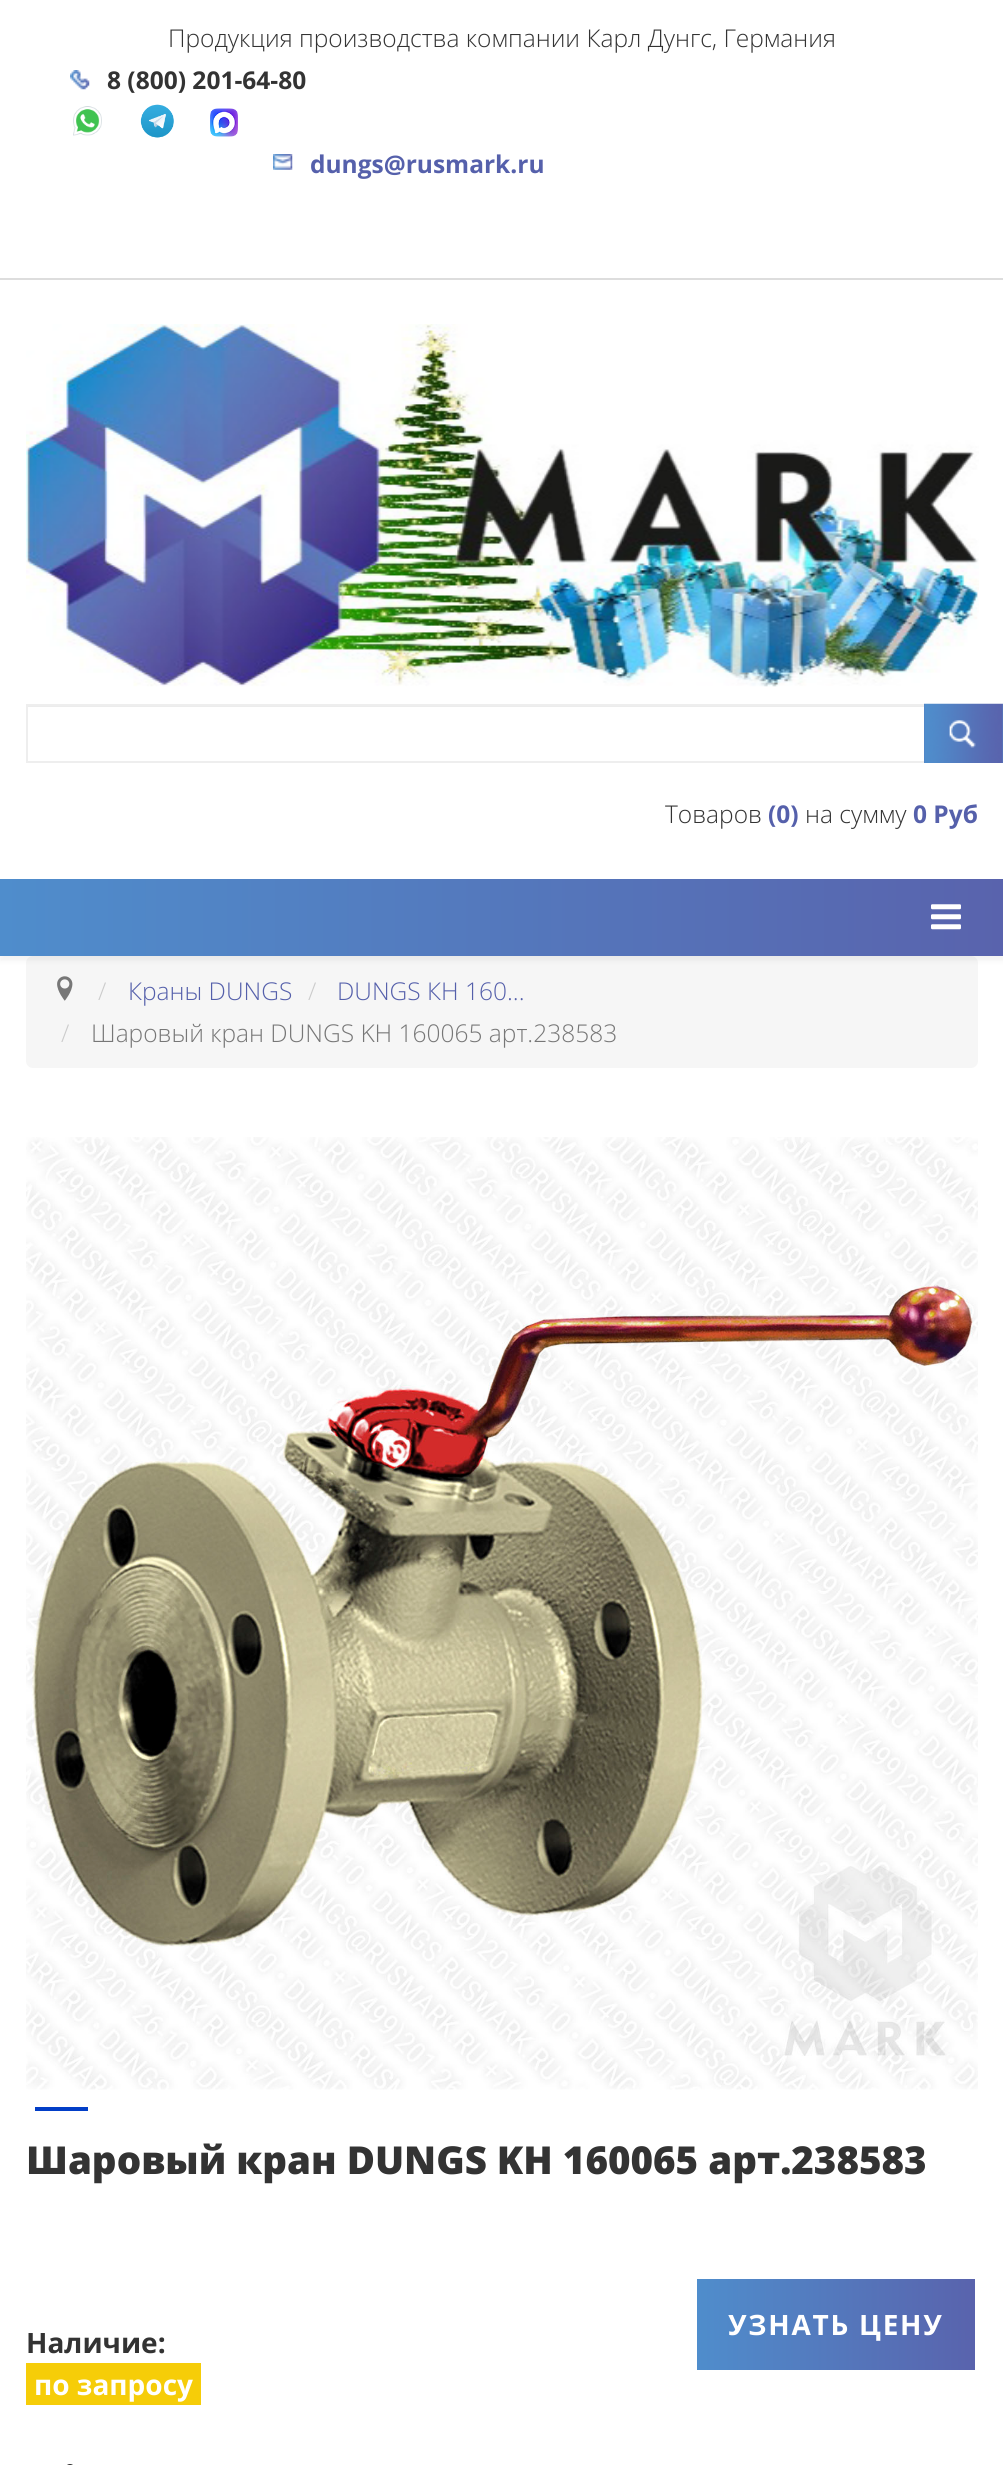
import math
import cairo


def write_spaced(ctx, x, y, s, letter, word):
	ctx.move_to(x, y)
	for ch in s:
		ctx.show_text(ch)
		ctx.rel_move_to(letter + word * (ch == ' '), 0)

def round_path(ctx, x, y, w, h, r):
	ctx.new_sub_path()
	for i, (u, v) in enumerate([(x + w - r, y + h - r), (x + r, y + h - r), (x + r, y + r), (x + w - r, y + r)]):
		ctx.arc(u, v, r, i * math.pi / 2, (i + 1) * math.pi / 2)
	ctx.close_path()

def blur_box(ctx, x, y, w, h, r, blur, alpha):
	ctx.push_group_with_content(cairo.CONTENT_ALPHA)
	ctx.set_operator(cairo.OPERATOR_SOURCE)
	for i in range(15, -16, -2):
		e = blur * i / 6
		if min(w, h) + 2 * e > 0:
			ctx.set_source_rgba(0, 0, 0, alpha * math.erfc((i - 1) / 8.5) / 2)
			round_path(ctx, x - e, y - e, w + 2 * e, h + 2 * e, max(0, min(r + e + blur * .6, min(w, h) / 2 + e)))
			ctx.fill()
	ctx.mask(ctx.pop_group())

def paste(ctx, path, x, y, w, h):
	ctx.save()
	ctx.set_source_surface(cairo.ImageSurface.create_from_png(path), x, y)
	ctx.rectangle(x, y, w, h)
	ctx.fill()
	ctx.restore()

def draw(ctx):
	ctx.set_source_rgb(1, 1, 1)
	ctx.paint()
	ctx.set_source_rgb(0.867, 0.867, 0.867)
	ctx.rectangle(0, 278, 1003, 2)
	ctx.fill()
	ctx.select_font_face('Open Sans Light')
	ctx.set_font_size(24.5)
	ctx.set_source_rgb(0.2, 0.2, 0.2)
	ctx.move_to(168, 47)
	ctx.show_text('Продукция производства компании Карл Дунгс, Германия')
	paste(ctx, 'media/1.png', 70, 70, 20, 20)
	ctx.select_font_face('Open Sans', cairo.FONT_SLANT_NORMAL, cairo.FONT_WEIGHT_BOLD)
	ctx.move_to(107, 89)
	ctx.show_text('8 (800) 201-64-80')
	paste(ctx, 'media/2.png', 73, 106, 29, 30)
	paste(ctx, 'media/3.png', 140, 104, 34, 34)
	paste(ctx, 'media/4.png', 210, 108, 28, 29)
	paste(ctx, 'media/5.png', 273, 154, 20, 16)
	ctx.set_source_rgb(0.333, 0.376, 0.671)
	ctx.move_to(310, 173)
	ctx.show_text('dungs@rusmark.ru')
	paste(ctx, 'media/6.png', 26, 324, 953, 363)
	ctx.set_source_rgb(0.925, 0.925, 0.925)
	ctx.rectangle(28, 706, 896, 1)
	ctx.fill()
	ctx.rectangle(27, 705, 950, 57)
	ctx.set_source_rgb(0.933, 0.933, 0.933)
	ctx.stroke()
	paste(ctx, 'media/7.png', 924, 703, 79, 60)
	ctx.select_font_face('Open Sans Light')
	ctx.set_source_rgb(0.2, 0.2, 0.2)
	ctx.move_to(665, 823)
	ctx.show_text('Товаров')
	ctx.select_font_face('Open Sans', cairo.FONT_SLANT_NORMAL, cairo.FONT_WEIGHT_BOLD)
	ctx.set_source_rgb(0.333, 0.376, 0.671)
	ctx.move_to(768, 823)
	ctx.show_text('(0)')
	ctx.select_font_face('Open Sans Light')
	ctx.set_source_rgb(0.2, 0.2, 0.2)
	ctx.move_to(805, 823)
	ctx.show_text('на сумму')
	ctx.select_font_face('Open Sans', cairo.FONT_SLANT_NORMAL, cairo.FONT_WEIGHT_BOLD)
	ctx.set_source_rgb(0.333, 0.376, 0.671)
	ctx.move_to(913, 823)
	ctx.show_text('0 Руб')
	ctx.set_source_rgb(0.961, 0.961, 0.961)
	round_path(ctx, 26, 956, 952, 112, 7)
	ctx.fill()
	ctx.set_source_rgb(0, 0, 0)
	blur_box(ctx, 0, 884, 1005, 77, 0, 2.5, 0.05)
	gradient = cairo.LinearGradient(0, 917, 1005, 917)
	gradient.add_color_stop_rgba(0, 0.31, 0.553, 0.8, 1)
	gradient.add_color_stop_rgba(1, 0.349, 0.388, 0.678, 1)
	ctx.set_source(gradient)
	ctx.rectangle(0, 879, 1003, 77)
	ctx.fill()
	paste(ctx, 'media/8.png', 931, 904, 30, 26)
	paste(ctx, 'media/9.png', 57, 976, 16, 25)
	ctx.select_font_face('Open Sans Light')
	ctx.set_source_rgb(0.8, 0.8, 0.8)
	ctx.move_to(98, 1000)
	ctx.show_text('/')
	ctx.set_source_rgb(0.333, 0.376, 0.671)
	ctx.move_to(128, 1000)
	ctx.show_text('Краны DUNGS')
	ctx.set_source_rgb(0.8, 0.8, 0.8)
	ctx.move_to(308, 1000)
	ctx.show_text('/')
	ctx.set_source_rgb(0.333, 0.376, 0.671)
	ctx.move_to(337, 1000)
	ctx.show_text('DUNGS КН 160...')
	ctx.set_source_rgb(0.8, 0.8, 0.8)
	ctx.move_to(61, 1042)
	ctx.show_text('/')
	ctx.set_source_rgb(0.467, 0.467, 0.467)
	ctx.move_to(91, 1042)
	ctx.show_text('Шаровый кран DUNGS KH 160065 арт.238583')
	paste(ctx, 'media/10.png', 26, 1137, 952, 953)
	ctx.set_source_rgb(0.008, 0.243, 0.78)
	ctx.rectangle(35, 2107, 53, 4)
	ctx.fill()
	ctx.select_font_face('Open Sans ExtraBold')
	ctx.set_font_size(38.5)
	ctx.set_source_rgb(0.2, 0.2, 0.2)
	ctx.move_to(26, 2174)
	ctx.show_text('Шаровый кран DUNGS KH 160065 арт.238583')
	gradient = cairo.LinearGradient(697, 2324, 975, 2324)
	gradient.add_color_stop_rgba(0, 0.31, 0.553, 0.8, 1)
	gradient.add_color_stop_rgba(1, 0.349, 0.388, 0.678, 1)
	ctx.set_source(gradient)
	ctx.rectangle(697, 2279, 278, 91)
	ctx.fill()
	ctx.select_font_face('Open Sans', cairo.FONT_SLANT_NORMAL, cairo.FONT_WEIGHT_BOLD)
	ctx.set_font_size(28)
	ctx.set_source_rgb(1, 1, 1)
	write_spaced(ctx, 728, 2335, 'УЗНАТЬ ЦЕНУ', 1.75, 0)
	ctx.set_source_rgb(0.2, 0.2, 0.2)
	ctx.move_to(26, 2353)
	ctx.show_text('Наличие:')
	ctx.set_source_rgb(0.961, 0.804, 0.035)
	ctx.rectangle(26, 2363, 175, 42)
	ctx.fill()
	ctx.set_source_rgb(1, 1, 1)
	ctx.move_to(34, 2395)
	ctx.show_text('по запросу')
	ctx.set_source_rgb(0.2, 0.2, 0.2)
	round_path(ctx, 65, 2464, 10, 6, 5)
	ctx.fill()


surface = cairo.ImageSurface(cairo.FORMAT_RGB24, 1003, 2465)
ctx = cairo.Context(surface)
options = cairo.FontOptions()
options.set_hint_metrics(cairo.HINT_METRICS_OFF)
options.set_hint_style(cairo.HINT_STYLE_NONE)
ctx.set_font_options(options)
ctx.set_miter_limit(4)
draw(ctx)
surface.write_to_png('image.png')
